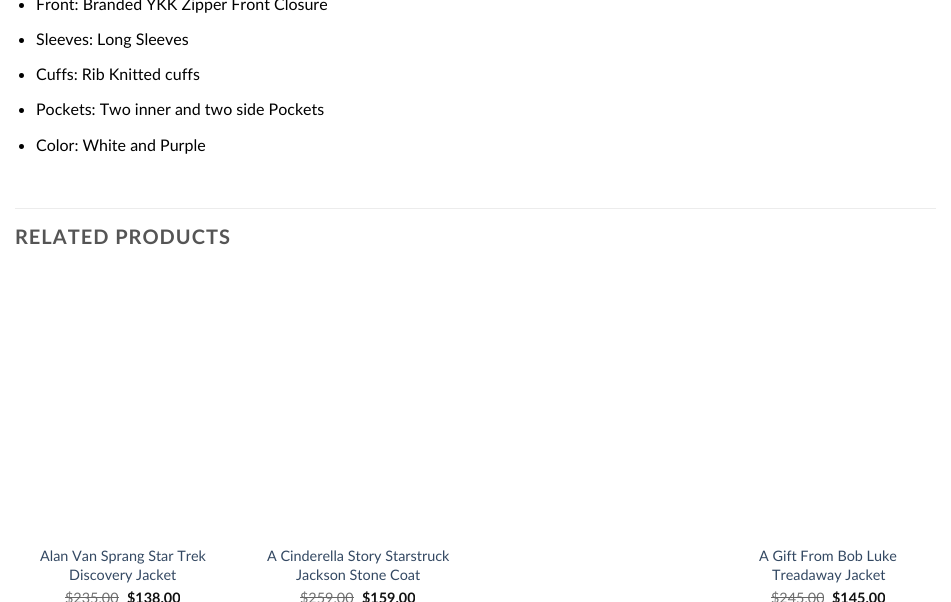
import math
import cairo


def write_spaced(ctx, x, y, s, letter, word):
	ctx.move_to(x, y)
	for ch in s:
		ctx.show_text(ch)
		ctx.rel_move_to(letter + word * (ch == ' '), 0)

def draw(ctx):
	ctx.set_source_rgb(1, 1, 1)
	ctx.paint()
	ctx.set_source_rgb(0, 0, 0)
	ctx.arc(21.5, 5.5, 2.5, 0, 2 * math.pi)
	ctx.fill()
	ctx.select_font_face('Lato')
	ctx.set_font_size(16)
	ctx.move_to(36, 10)
	ctx.show_text('Front: Branded YKK Zipper Front Closure')
	ctx.new_path()
	ctx.arc(21.5, 40.5, 2.5, 0, 2 * math.pi)
	ctx.fill()
	ctx.move_to(36, 45)
	ctx.show_text('Sleeves: Long Sleeves')
	ctx.new_path()
	ctx.arc(21.5, 75.5, 2.5, 0, 2 * math.pi)
	ctx.fill()
	ctx.move_to(36, 80)
	ctx.show_text('Cuffs: Rib Knitted cuffs')
	ctx.new_path()
	ctx.arc(21.5, 110.5, 2.5, 0, 2 * math.pi)
	ctx.fill()
	ctx.move_to(36, 115)
	ctx.show_text('Pockets: Two inner and two side Pockets')
	ctx.new_path()
	ctx.arc(21.5, 146.5, 2.5, 0, 2 * math.pi)
	ctx.fill()
	ctx.move_to(36, 151)
	ctx.show_text('Color: White and Purple')
	ctx.set_source_rgb(0.925, 0.925, 0.925)
	ctx.rectangle(15, 208, 921, 1)
	ctx.fill()
	ctx.select_font_face('Lato', cairo.FONT_SLANT_NORMAL, cairo.FONT_WEIGHT_BOLD)
	ctx.set_font_size(20)
	ctx.set_source_rgb(0.333, 0.333, 0.333)
	write_spaced(ctx, 15, 244, 'RELATED PRODUCTS', 1, 0)
	ctx.select_font_face('Lato')
	ctx.set_font_size(14.4)
	ctx.set_source_rgb(0.2, 0.282, 0.384)
	ctx.move_to(40, 561)
	ctx.show_text('Alan Van Sprang Star Trek')
	ctx.move_to(69, 580)
	ctx.show_text('Discovery Jacket')
	ctx.set_source_rgb(0.439, 0.439, 0.439)
	ctx.move_to(65, 603)
	ctx.show_text('$235.00')
	ctx.set_source_rgb(0.4, 0.4, 0.4)
	ctx.rectangle(65, 597, 54, 1)
	ctx.fill()
	ctx.select_font_face('Lato', cairo.FONT_SLANT_NORMAL, cairo.FONT_WEIGHT_BOLD)
	ctx.set_source_rgb(0.067, 0.067, 0.067)
	ctx.move_to(127, 603)
	ctx.show_text('$138.00')
	ctx.select_font_face('Lato')
	ctx.set_source_rgb(0.2, 0.282, 0.384)
	ctx.move_to(267, 561)
	ctx.show_text('A Cinderella Story Starstruck')
	ctx.move_to(296, 580)
	ctx.show_text('Jackson Stone Coat')
	ctx.set_source_rgb(0.439, 0.439, 0.439)
	ctx.move_to(300, 603)
	ctx.show_text('$259.00')
	ctx.set_source_rgb(0.4, 0.4, 0.4)
	ctx.rectangle(300, 597, 54, 1)
	ctx.fill()
	ctx.select_font_face('Lato', cairo.FONT_SLANT_NORMAL, cairo.FONT_WEIGHT_BOLD)
	ctx.set_source_rgb(0.067, 0.067, 0.067)
	ctx.move_to(362, 603)
	ctx.show_text('$159.00')
	ctx.select_font_face('Lato')
	ctx.set_source_rgb(0.2, 0.282, 0.384)
	ctx.move_to(759, 561)
	ctx.show_text('A Gift From Bob Luke')
	ctx.move_to(772, 580)
	ctx.show_text('Treadaway Jacket')
	ctx.set_source_rgb(0.439, 0.439, 0.439)
	ctx.move_to(771, 603)
	ctx.show_text('$245.00')
	ctx.set_source_rgb(0.4, 0.4, 0.4)
	ctx.rectangle(771, 597, 53, 1)
	ctx.fill()
	ctx.select_font_face('Lato', cairo.FONT_SLANT_NORMAL, cairo.FONT_WEIGHT_BOLD)
	ctx.set_source_rgb(0.067, 0.067, 0.067)
	ctx.move_to(832, 603)
	ctx.show_text('$145.00')


surface = cairo.ImageSurface(cairo.FORMAT_RGB24, 951, 602)
ctx = cairo.Context(surface)
options = cairo.FontOptions()
options.set_hint_metrics(cairo.HINT_METRICS_OFF)
options.set_hint_style(cairo.HINT_STYLE_NONE)
ctx.set_font_options(options)
ctx.set_miter_limit(4)
draw(ctx)
surface.write_to_png('image.png')
